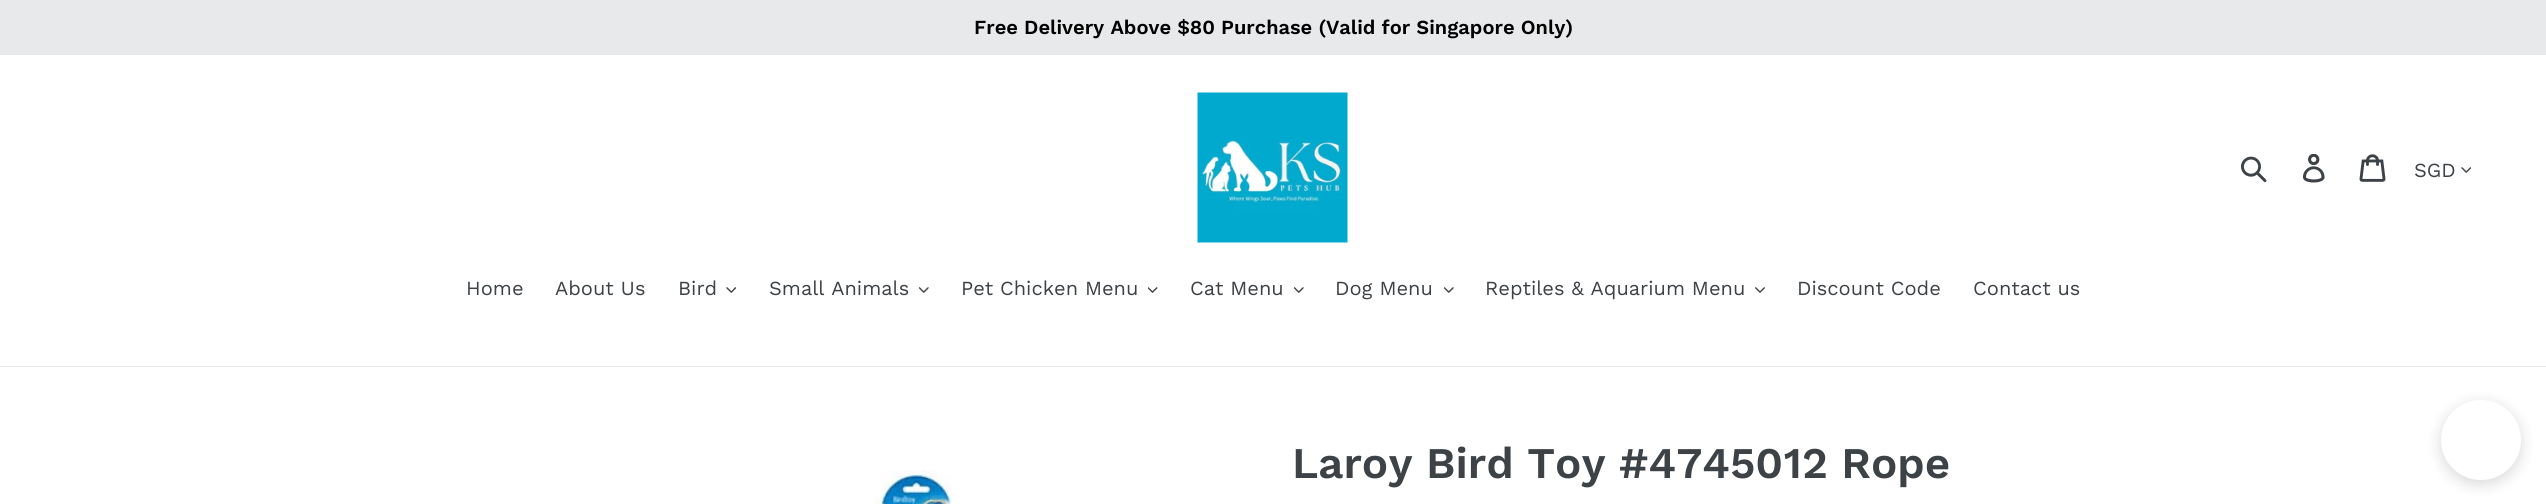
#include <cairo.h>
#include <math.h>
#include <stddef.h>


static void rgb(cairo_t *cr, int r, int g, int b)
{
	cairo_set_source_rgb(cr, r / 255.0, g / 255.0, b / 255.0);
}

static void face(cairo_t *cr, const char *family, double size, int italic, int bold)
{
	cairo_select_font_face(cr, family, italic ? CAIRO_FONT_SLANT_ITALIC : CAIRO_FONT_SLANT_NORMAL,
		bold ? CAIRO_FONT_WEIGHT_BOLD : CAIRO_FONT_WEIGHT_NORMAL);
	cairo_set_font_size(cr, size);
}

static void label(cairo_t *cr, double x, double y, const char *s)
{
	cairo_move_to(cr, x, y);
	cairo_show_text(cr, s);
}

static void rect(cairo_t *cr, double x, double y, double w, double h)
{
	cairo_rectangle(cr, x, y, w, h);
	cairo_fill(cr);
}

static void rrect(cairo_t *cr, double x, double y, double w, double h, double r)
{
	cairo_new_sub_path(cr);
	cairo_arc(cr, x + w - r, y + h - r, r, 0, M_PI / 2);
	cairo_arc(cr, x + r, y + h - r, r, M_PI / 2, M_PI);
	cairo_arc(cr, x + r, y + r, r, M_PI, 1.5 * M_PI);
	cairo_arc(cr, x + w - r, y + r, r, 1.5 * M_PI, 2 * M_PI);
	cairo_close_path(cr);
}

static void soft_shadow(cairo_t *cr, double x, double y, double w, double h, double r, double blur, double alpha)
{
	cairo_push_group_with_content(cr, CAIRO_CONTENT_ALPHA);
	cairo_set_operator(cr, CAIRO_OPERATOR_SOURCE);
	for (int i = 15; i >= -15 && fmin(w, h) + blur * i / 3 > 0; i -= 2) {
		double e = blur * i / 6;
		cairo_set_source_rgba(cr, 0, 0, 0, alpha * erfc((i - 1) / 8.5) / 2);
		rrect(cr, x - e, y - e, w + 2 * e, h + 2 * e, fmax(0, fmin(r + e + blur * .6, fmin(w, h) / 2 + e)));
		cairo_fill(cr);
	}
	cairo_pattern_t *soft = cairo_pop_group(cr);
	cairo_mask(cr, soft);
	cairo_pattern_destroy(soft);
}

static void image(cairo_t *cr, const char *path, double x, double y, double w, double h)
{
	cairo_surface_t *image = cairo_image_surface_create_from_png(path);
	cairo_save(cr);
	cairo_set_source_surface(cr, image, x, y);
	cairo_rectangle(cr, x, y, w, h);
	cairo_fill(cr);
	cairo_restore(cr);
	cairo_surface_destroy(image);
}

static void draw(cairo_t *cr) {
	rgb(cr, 255, 255, 255);
	cairo_paint(cr);
	rgb(cr, 232, 233, 235);
	rect(cr, 0, 0, 2546, 55);
	face(cr, "Work Sans SemiBold", 20, 0, 0);
	rgb(cr, 0, 0, 0);
	label(cr, 974, 34, "Free Delivery Above $80 Purchase (Valid for Singapore Only)");
	image(cr, "image0.png", 1197, 92, 151, 151);
	image(cr, "image1.png", 2241, 156, 26, 27);
	image(cr, "image2.png", 2303, 154, 22, 29);
	image(cr, "image3.png", 2359, 154, 27, 28);
	face(cr, "Work Sans", 20, 0, 0);
	rgb(cr, 61, 66, 70);
	label(cr, 2414, 177, "SGD");
	image(cr, "image4.png", 2461, 167, 10, 6);
	rgb(cr, 232, 233, 235);
	rect(cr, 0, 366, 2546, 1);
	rgb(cr, 61, 66, 70);
	label(cr, 466, 295, "Home");
	label(cr, 555, 295, "About Us");
	label(cr, 678, 295, "Bird");
	image(cr, "image4.png", 726, 287, 10, 6);
	label(cr, 769, 295, "Small Animals");
	image(cr, "image5.png", 919, 287, 10, 6);
	label(cr, 961, 295, "Pet Chicken Menu");
	image(cr, "image6.png", 1148, 287, 10, 6);
	label(cr, 1190, 295, "Cat Menu");
	image(cr, "image5.png", 1294, 287, 10, 6);
	label(cr, 1335, 295, "Dog Menu");
	image(cr, "image5.png", 1444, 287, 10, 6);
	label(cr, 1485, 295, "Reptiles & Aquarium Menu");
	image(cr, "image7.png", 1755, 287, 10, 6);
	label(cr, 1797, 295, "Discount Code");
	label(cr, 1973, 295, "Contact us");
	image(cr, "image8.png", 874, 470, 78, 34);
	face(cr, "Work Sans SemiBold", 43.75, 0, 0);
	label(cr, 1292, 478, "Laroy Bird Toy #4745012 Rope");
	rgb(cr, 0, 0, 0);
	soft_shadow(cr, 2441, 404, 80, 80, 40, 7.5, 0.15);
	rgb(cr, 255, 255, 255);
	cairo_arc(cr, 2481, 440, 40, 0, 2 * M_PI);
	cairo_fill(cr);
}

int main(void) {
	cairo_surface_t *surface = cairo_image_surface_create(CAIRO_FORMAT_RGB24, 2546, 504);
	cairo_t *cr = cairo_create(surface);
	cairo_font_options_t *options = cairo_font_options_create();
	cairo_font_options_set_hint_metrics(options, CAIRO_HINT_METRICS_OFF);
	cairo_font_options_set_hint_style(options, CAIRO_HINT_STYLE_NONE);
	cairo_set_font_options(cr, options);
	cairo_set_miter_limit(cr, 4);
	draw(cr);
	cairo_surface_write_to_png(surface, "render.png");
	cairo_font_options_destroy(options);
	cairo_destroy(cr);
	cairo_surface_destroy(surface);
	return 0;
}
